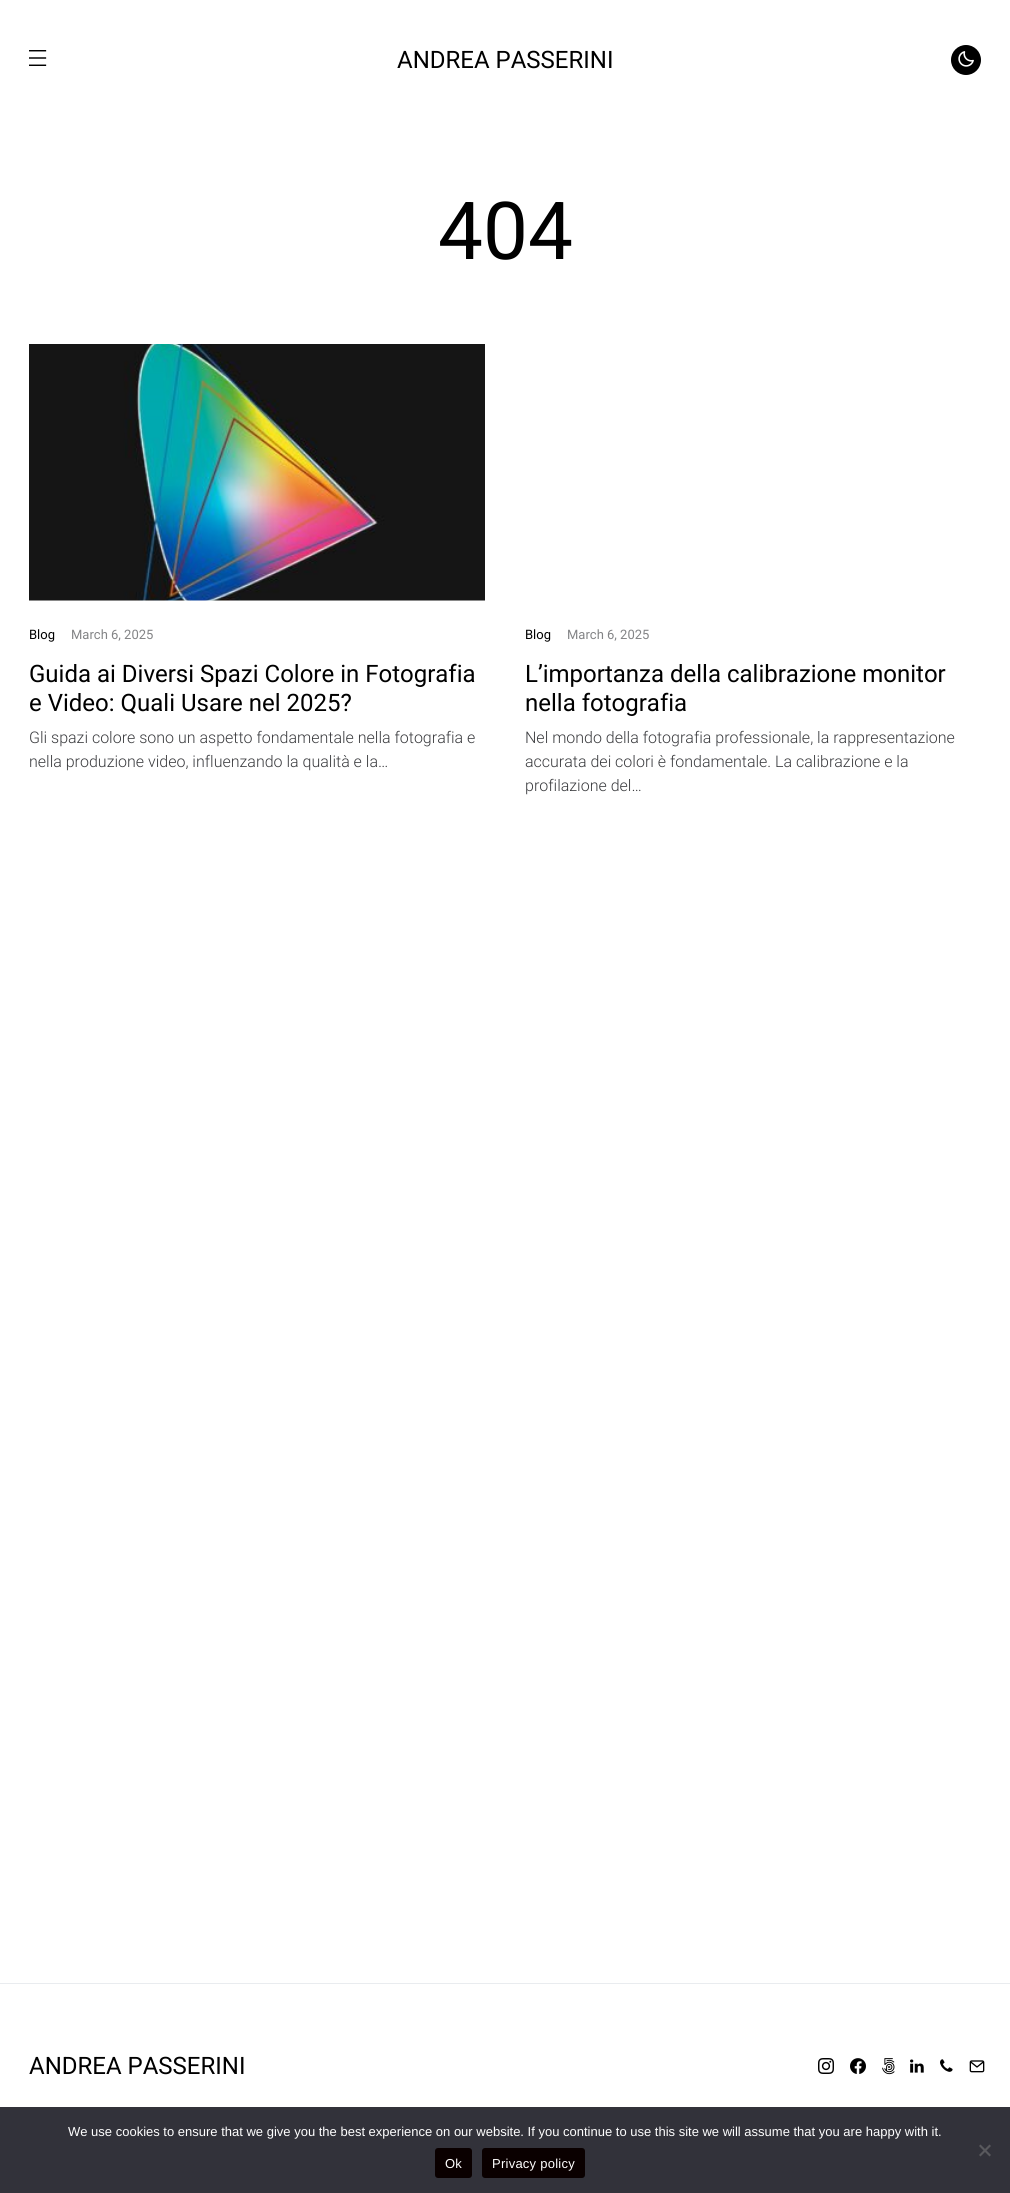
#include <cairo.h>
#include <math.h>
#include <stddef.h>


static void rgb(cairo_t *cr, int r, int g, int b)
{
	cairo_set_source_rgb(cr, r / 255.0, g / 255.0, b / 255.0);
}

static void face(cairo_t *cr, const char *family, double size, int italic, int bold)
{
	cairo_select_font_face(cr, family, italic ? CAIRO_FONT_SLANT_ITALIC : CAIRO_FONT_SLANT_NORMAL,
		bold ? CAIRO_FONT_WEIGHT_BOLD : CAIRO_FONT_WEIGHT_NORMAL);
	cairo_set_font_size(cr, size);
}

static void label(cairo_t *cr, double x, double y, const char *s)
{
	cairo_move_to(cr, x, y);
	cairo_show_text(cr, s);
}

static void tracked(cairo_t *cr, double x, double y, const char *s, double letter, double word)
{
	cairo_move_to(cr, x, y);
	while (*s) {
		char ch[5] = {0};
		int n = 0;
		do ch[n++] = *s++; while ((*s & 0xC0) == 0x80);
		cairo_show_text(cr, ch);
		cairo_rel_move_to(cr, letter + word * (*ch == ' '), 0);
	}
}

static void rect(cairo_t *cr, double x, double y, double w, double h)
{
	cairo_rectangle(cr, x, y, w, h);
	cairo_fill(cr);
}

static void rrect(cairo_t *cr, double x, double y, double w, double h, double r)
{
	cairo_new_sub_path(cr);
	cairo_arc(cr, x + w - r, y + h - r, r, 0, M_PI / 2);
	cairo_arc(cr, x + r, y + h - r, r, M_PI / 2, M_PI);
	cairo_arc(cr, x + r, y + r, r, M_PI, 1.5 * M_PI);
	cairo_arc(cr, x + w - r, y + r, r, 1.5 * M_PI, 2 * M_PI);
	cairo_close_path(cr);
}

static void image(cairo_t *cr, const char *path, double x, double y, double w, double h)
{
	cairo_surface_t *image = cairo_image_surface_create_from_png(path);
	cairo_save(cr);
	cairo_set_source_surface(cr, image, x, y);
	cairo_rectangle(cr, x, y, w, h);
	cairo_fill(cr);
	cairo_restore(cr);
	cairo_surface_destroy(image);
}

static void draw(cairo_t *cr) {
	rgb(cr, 255, 255, 255);
	cairo_paint(cr);
	image(cr, "image0.png", 29, 50, 18, 16);
	face(cr, "Roboto", 24, 0, 0);
	rgb(cr, 0, 0, 0);
	label(cr, 397, 68, "ANDREA PASSERINI");
	cairo_new_path(cr);
	cairo_arc(cr, 966, 60, 15, 0, 2 * M_PI);
	cairo_fill(cr);
	image(cr, "image1.png", 958, 51, 16, 16);
	face(cr, "Roboto", 80, 0, 0);
	label(cr, 438, 259, "404");
	image(cr, "image2.png", 29, 344, 456, 257);
	face(cr, "Roboto", 13, 0, 0);
	label(cr, 29, 639, "Blog");
	rgb(cr, 131, 132, 134);
	label(cr, 71, 639, "March 6, 2025");
	face(cr, "Roboto", 24, 0, 0);
	rgb(cr, 0, 0, 0);
	label(cr, 29, 682, "Guida ai Diversi Spazi Colore in Fotografia");
	label(cr, 29, 711, "e Video: Quali Usare nel 2025?");
	face(cr, "Roboto Light", 16, 0, 0);
	rgb(cr, 59, 60, 63);
	label(cr, 29, 743, "Gli spazi colore sono un aspetto fondamentale nella fotografia e");
	label(cr, 29, 767, "nella produzione video, influenzando la qualità e la…");
	face(cr, "Roboto", 13, 0, 0);
	rgb(cr, 0, 0, 0);
	label(cr, 525, 639, "Blog");
	rgb(cr, 131, 132, 134);
	label(cr, 567, 639, "March 6, 2025");
	face(cr, "Roboto", 24, 0, 0);
	rgb(cr, 0, 0, 0);
	label(cr, 525, 682, "L’importanza della calibrazione monitor");
	label(cr, 525, 711, "nella fotografia");
	face(cr, "Roboto Light", 16, 0, 0);
	rgb(cr, 59, 60, 63);
	label(cr, 525, 743, "Nel mondo della fotografia professionale, la rappresentazione");
	label(cr, 525, 767, "accurata dei colori è fondamentale. La calibrazione e la");
	label(cr, 525, 791, "profilazione del…");
	rgb(cr, 233, 236, 239);
	rect(cr, 0, 1983, 1010, 1);
	face(cr, "Roboto", 24, 0, 0);
	rgb(cr, 0, 0, 0);
	label(cr, 29, 2074, "ANDREA PASSERINI");
	image(cr, "image3.png", 818, 2058, 16, 16);
	image(cr, "image4.png", 850, 2058, 16, 16);
	image(cr, "image5.png", 882, 2058, 13, 17);
	image(cr, "image6.png", 910, 2059, 14, 14);
	image(cr, "image7.png", 940, 2059, 13, 13);
	image(cr, "image8.png", 969, 2060, 16, 13);
	rgb(cr, 50, 50, 58);
	rect(cr, 0, 2107, 1010, 86);
	face(cr, "Liberation Sans", 13, 0, 0);
	rgb(cr, 255, 255, 255);
	label(cr, 68, 2136, "We use cookies to ensure that we give you the best experience on our website. If you continue to use this site we will assume that you are happy with it.");
	rgb(cr, 89, 89, 93);
	cairo_new_path(cr);
	cairo_move_to(cr, 989.5, 2144.5);
	cairo_line_to(cr, 991, 2146);
	cairo_line_to(cr, 980.5, 2156.5);
	cairo_line_to(cr, 979, 2155);
	cairo_close_path(cr);
	cairo_fill(cr);
	cairo_new_path(cr);
	cairo_move_to(cr, 979, 2146);
	cairo_line_to(cr, 980.5, 2144.5);
	cairo_line_to(cr, 991, 2155);
	cairo_line_to(cr, 989.5, 2156.5);
	cairo_close_path(cr);
	cairo_fill(cr);
	rgb(cr, 10, 0, 0);
	rrect(cr, 435, 2148, 37, 30, 3);
	cairo_fill(cr);
	rgb(cr, 255, 255, 255);
	tracked(cr, 445, 2168, "Ok", 0.25, 0);
	rgb(cr, 10, 0, 0);
	rrect(cr, 482, 2148, 103, 30, 3);
	cairo_fill(cr);
	rgb(cr, 255, 255, 255);
	tracked(cr, 492, 2168, "Privacy policy", 0.25, 0);
}

int main(void) {
	cairo_surface_t *surface = cairo_image_surface_create(CAIRO_FORMAT_RGB24, 1010, 2193);
	cairo_t *cr = cairo_create(surface);
	cairo_font_options_t *options = cairo_font_options_create();
	cairo_font_options_set_hint_metrics(options, CAIRO_HINT_METRICS_OFF);
	cairo_font_options_set_hint_style(options, CAIRO_HINT_STYLE_NONE);
	cairo_set_font_options(cr, options);
	cairo_set_miter_limit(cr, 4);
	draw(cr);
	cairo_surface_write_to_png(surface, "render.png");
	cairo_font_options_destroy(options);
	cairo_destroy(cr);
	cairo_surface_destroy(surface);
	return 0;
}
